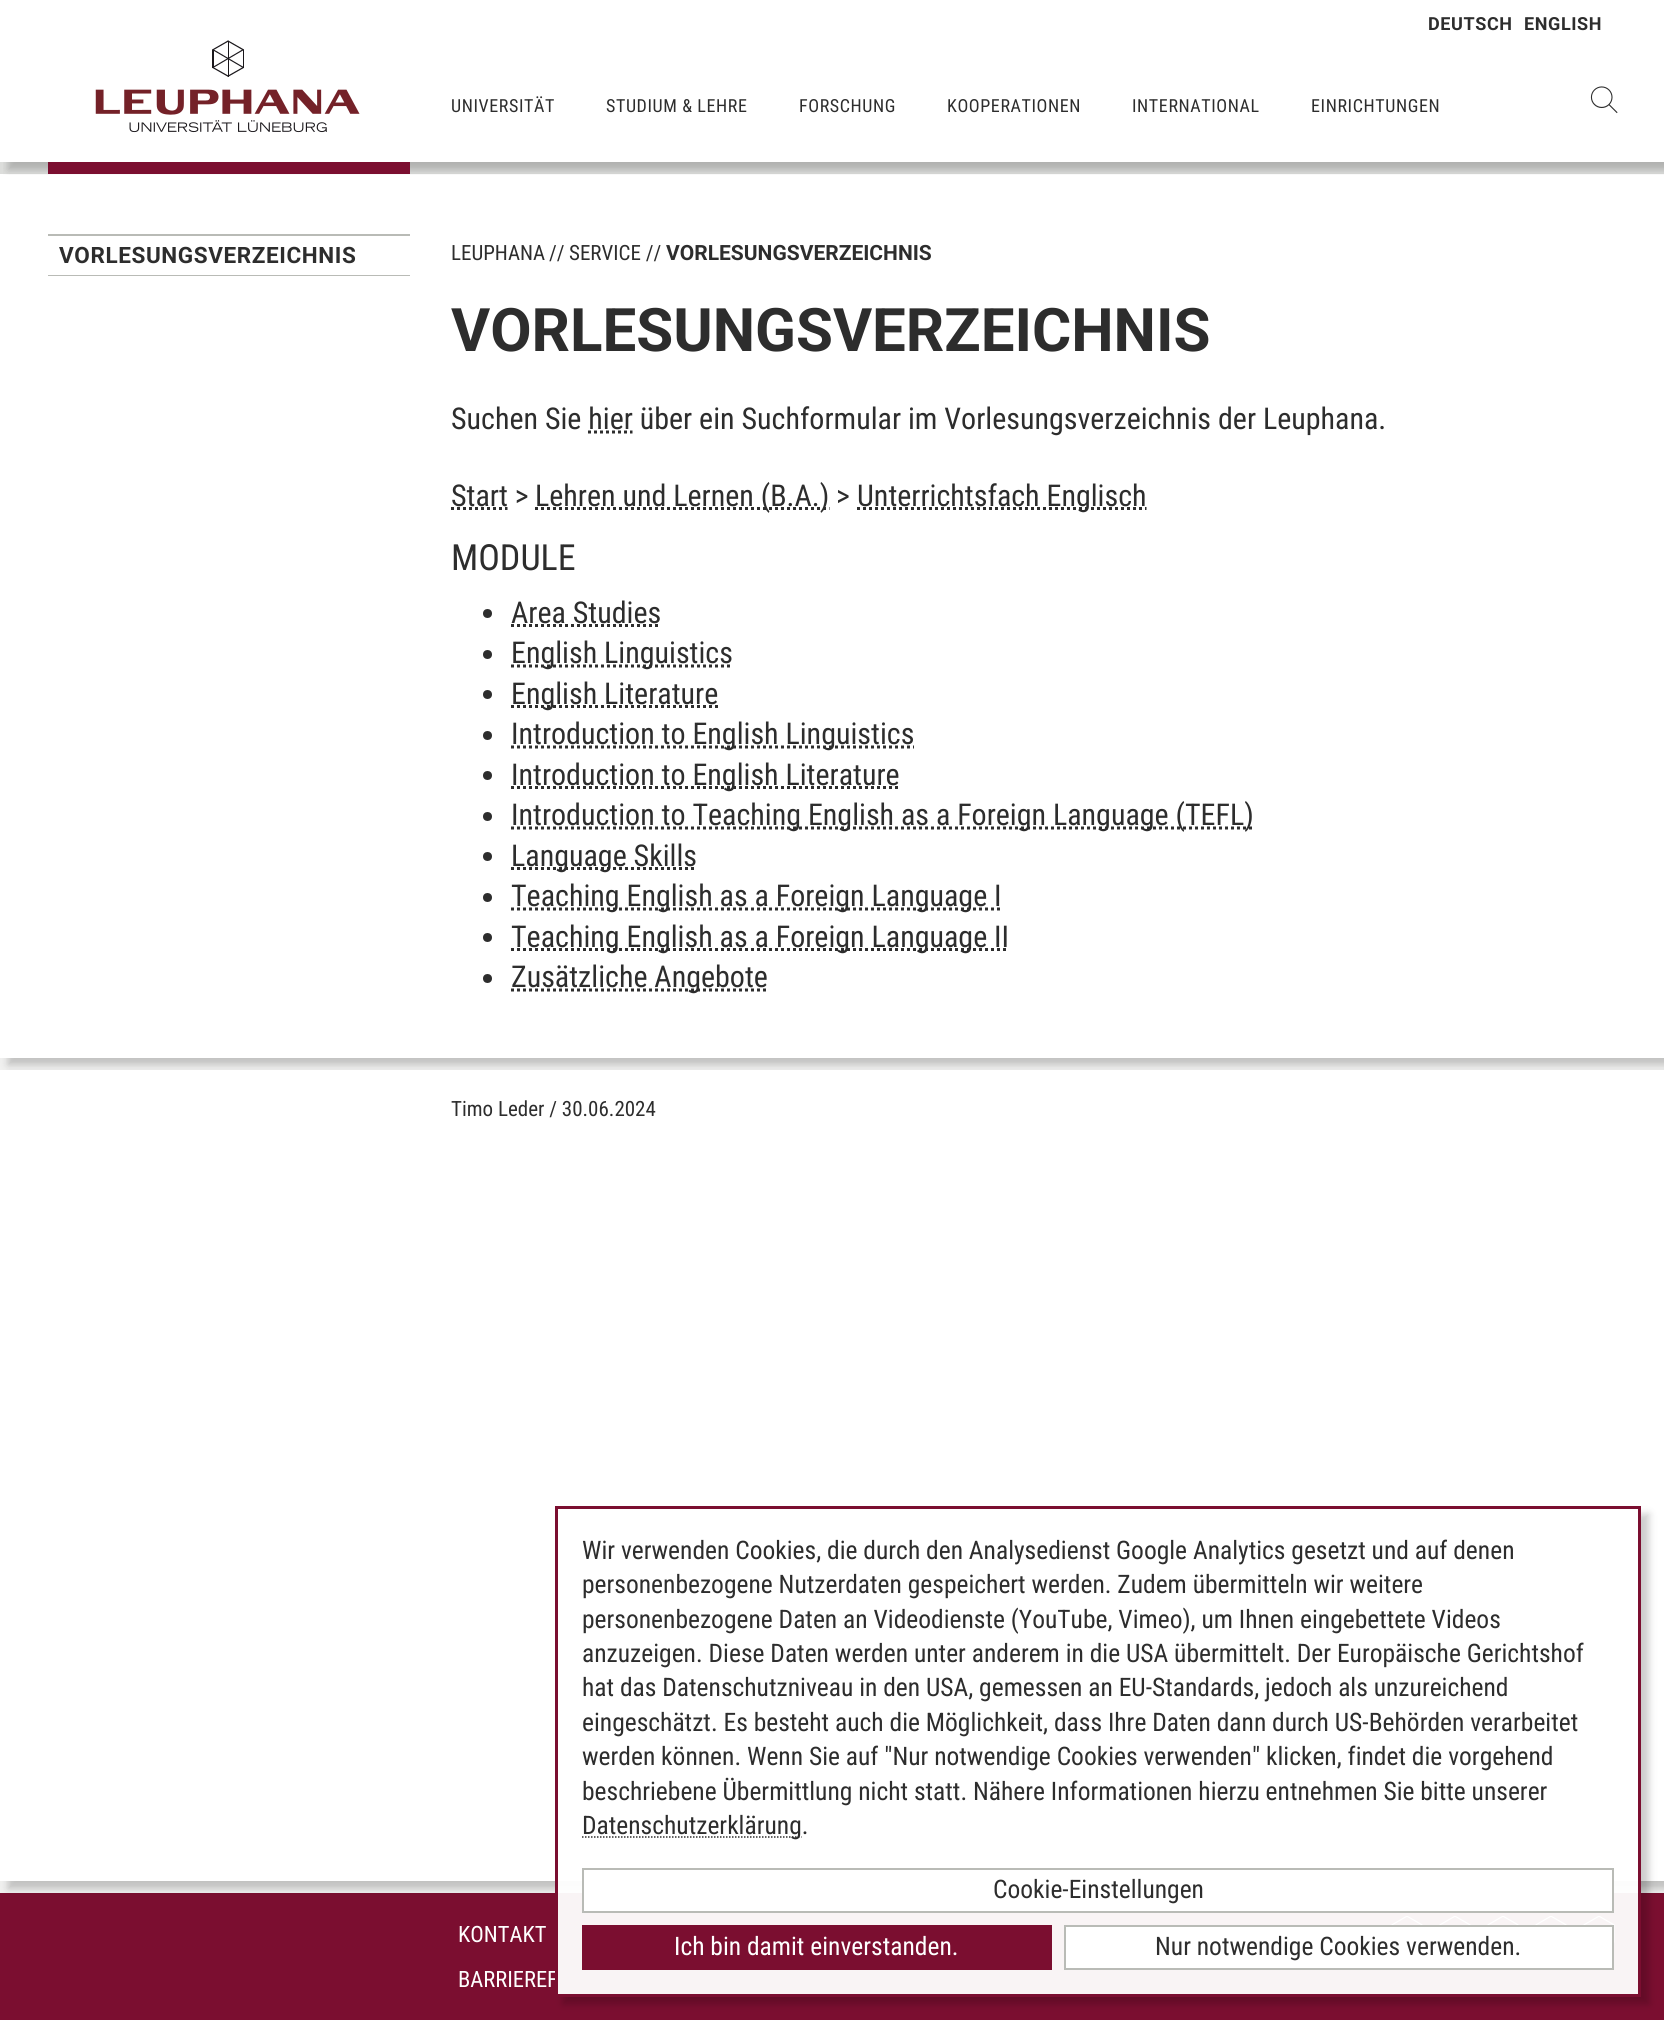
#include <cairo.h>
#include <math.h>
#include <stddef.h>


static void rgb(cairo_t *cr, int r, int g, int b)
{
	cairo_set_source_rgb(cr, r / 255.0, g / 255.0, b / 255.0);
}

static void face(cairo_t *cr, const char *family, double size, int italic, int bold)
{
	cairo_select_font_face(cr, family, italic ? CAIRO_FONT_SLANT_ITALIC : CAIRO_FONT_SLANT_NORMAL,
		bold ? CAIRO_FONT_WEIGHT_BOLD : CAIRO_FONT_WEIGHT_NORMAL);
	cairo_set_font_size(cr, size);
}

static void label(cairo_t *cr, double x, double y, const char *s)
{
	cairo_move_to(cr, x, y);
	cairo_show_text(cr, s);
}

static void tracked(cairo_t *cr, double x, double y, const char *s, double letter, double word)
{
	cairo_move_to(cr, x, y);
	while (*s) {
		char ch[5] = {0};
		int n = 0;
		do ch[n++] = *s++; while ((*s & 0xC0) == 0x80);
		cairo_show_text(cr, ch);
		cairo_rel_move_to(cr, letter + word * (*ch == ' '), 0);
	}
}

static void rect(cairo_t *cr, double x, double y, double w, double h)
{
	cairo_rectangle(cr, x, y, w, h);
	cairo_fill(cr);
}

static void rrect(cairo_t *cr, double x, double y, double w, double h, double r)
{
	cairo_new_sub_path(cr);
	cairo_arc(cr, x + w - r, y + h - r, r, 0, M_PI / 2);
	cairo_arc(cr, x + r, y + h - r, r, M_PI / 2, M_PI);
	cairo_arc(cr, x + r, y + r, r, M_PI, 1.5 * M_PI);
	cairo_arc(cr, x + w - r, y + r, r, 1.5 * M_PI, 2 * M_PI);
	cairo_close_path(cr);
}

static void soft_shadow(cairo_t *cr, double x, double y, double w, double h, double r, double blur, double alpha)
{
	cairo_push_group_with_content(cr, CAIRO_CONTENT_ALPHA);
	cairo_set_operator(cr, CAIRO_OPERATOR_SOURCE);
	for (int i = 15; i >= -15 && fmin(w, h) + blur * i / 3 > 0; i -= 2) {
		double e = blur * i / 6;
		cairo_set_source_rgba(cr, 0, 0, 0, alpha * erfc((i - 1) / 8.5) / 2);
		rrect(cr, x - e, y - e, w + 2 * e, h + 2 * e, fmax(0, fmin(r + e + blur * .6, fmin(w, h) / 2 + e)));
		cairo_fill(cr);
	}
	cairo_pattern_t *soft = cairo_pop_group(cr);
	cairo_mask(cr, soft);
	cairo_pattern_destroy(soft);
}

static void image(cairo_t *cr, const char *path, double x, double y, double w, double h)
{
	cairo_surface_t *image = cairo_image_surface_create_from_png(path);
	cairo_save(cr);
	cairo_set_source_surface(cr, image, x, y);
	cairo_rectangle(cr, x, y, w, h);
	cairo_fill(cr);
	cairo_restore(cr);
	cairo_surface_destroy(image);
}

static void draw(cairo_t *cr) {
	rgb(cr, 220, 221, 219);
	cairo_paint(cr);
	rgb(cr, 255, 255, 255);
	rect(cr, 0, 0, 1664, 162);
	rgb(cr, 241, 241, 240);
	rect(cr, 0, 1058, 1664, 12);
	rgb(cr, 0, 0, 0);
	soft_shadow(cr, 8, 182, 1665, 883, 0, 4, 0.2);
	rgb(cr, 255, 255, 255);
	rect(cr, 0, 174, 1664, 884);
	cairo_save(cr);
	cairo_rectangle(cr, 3, 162, 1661, 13);
	cairo_clip(cr);
	rgb(cr, 0, 0, 0);
	soft_shadow(cr, 8, 8, 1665, 162, 0, 4, 0.2);
	cairo_restore(cr);
	face(cr, "Roboto", 18, 0, 1);
	rgb(cr, 45, 45, 45);
	tracked(cr, 1428, 30, "DEUTSCH", 0.6, 0);
	tracked(cr, 1524, 30, "ENGLISH", 0.6, 0);
	image(cr, "image0.png", 95, 40, 265, 93);
	rgb(cr, 123, 14, 48);
	rect(cr, 48, 162, 362, 12);
	face(cr, "Roboto Condensed", 18, 0, 0);
	rgb(cr, 45, 45, 45);
	tracked(cr, 451, 112, "UNIVERSITÄT", 0.6, 0);
	tracked(cr, 606, 112, "STUDIUM & LEHRE", 0.6, 0);
	tracked(cr, 799, 112, "FORSCHUNG", 0.6, 0);
	tracked(cr, 947, 112, "KOOPERATIONEN", 0.6, 0);
	tracked(cr, 1132, 112, "INTERNATIONAL", 0.6, 0);
	tracked(cr, 1311, 112, "EINRICHTUNGEN", 0.6, 0);
	image(cr, "image1.png", 1590, 86, 28, 28);
	rgb(cr, 185, 187, 182);
	rect(cr, 48, 234, 362, 2);
	rect(cr, 48, 275, 362, 1);
	face(cr, "Roboto", 22.5, 0, 1);
	rgb(cr, 45, 45, 45);
	tracked(cr, 59, 263, "VORLESUNGSVERZEICHNIS", 0.6, 0);
	face(cr, "Roboto Condensed", 21, 0, 0);
	label(cr, 451, 260, "LEUPHANA");
	label(cr, 549, 260, "//");
	label(cr, 569, 260, "SERVICE //");
	face(cr, "Roboto", 21, 0, 1);
	label(cr, 666, 260, "VORLESUNGSVERZEICHNIS");
	face(cr, "Roboto", 60, 0, 1);
	label(cr, 451, 351, "VORLESUNGSVERZEICHNIS");
	face(cr, "Roboto Condensed", 30, 0, 0);
	label(cr, 451, 429, "Suchen Sie hier über ein Suchformular im Vorlesungsverzeichnis der Leuphana.");
	cairo_new_path(cr);
	cairo_move_to(cr, 588, 432);
	cairo_line_to(cr, 632.5, 432);
	cairo_set_line_width(cr, 3);
	cairo_set_dash(cr, (double[]){3, 3}, 2, 0);
	cairo_stroke(cr);
	label(cr, 451, 506, "Start >");
	cairo_new_path(cr);
	cairo_move_to(cr, 451, 508.5);
	cairo_line_to(cr, 507.5, 508.5);
	cairo_stroke(cr);
	cairo_new_path(cr);
	cairo_move_to(cr, 535, 508.5);
	cairo_line_to(cr, 829.5, 508.5);
	cairo_stroke(cr);
	label(cr, 535, 506, "Lehren und Lernen (B.A.) >");
	cairo_new_path(cr);
	cairo_move_to(cr, 857, 508.5);
	cairo_line_to(cr, 1146.5, 508.5);
	cairo_stroke(cr);
	label(cr, 857, 506, "Unterrichtsfach Englisch");
	face(cr, "Roboto Condensed", 36, 0, 0);
	label(cr, 451, 570, "MODULE");
	cairo_new_path(cr);
	cairo_arc(cr, 487.5, 613.5, 4.5, 0, 2 * M_PI);
	cairo_fill(cr);
	face(cr, "Roboto Condensed", 30, 0, 0);
	label(cr, 511, 623, "Area Studies");
	cairo_new_path(cr);
	cairo_move_to(cr, 511, 625.5);
	cairo_line_to(cr, 661, 625.5);
	cairo_stroke(cr);
	cairo_arc(cr, 487.5, 654.5, 4.5, 0, 2 * M_PI);
	cairo_fill(cr);
	cairo_new_path(cr);
	cairo_move_to(cr, 511, 666);
	cairo_line_to(cr, 732.5, 666);
	cairo_stroke(cr);
	label(cr, 511, 663, "English Linguistics");
	cairo_new_path(cr);
	cairo_arc(cr, 487.5, 694.5, 4.5, 0, 2 * M_PI);
	cairo_fill(cr);
	cairo_new_path(cr);
	cairo_move_to(cr, 511, 706.5);
	cairo_line_to(cr, 718, 706.5);
	cairo_stroke(cr);
	label(cr, 511, 704, "English Literature");
	cairo_new_path(cr);
	cairo_arc(cr, 487.5, 735.5, 4.5, 0, 2 * M_PI);
	cairo_fill(cr);
	cairo_new_path(cr);
	cairo_move_to(cr, 511, 747);
	cairo_line_to(cr, 914, 747);
	cairo_stroke(cr);
	label(cr, 511, 744, "Introduction to English Linguistics");
	cairo_new_path(cr);
	cairo_arc(cr, 487.5, 775.5, 4.5, 0, 2 * M_PI);
	cairo_fill(cr);
	cairo_new_path(cr);
	cairo_move_to(cr, 511, 787.5);
	cairo_line_to(cr, 899.5, 787.5);
	cairo_stroke(cr);
	label(cr, 511, 785, "Introduction to English Literature");
	cairo_new_path(cr);
	cairo_arc(cr, 487.5, 816.5, 4.5, 0, 2 * M_PI);
	cairo_fill(cr);
	cairo_new_path(cr);
	cairo_move_to(cr, 511, 828);
	cairo_line_to(cr, 1253.5, 828);
	cairo_stroke(cr);
	label(cr, 511, 825, "Introduction to Teaching English as a Foreign Language (TEFL)");
	cairo_new_path(cr);
	cairo_arc(cr, 487.5, 856.5, 4.5, 0, 2 * M_PI);
	cairo_fill(cr);
	cairo_new_path(cr);
	cairo_move_to(cr, 511, 868.5);
	cairo_line_to(cr, 697, 868.5);
	cairo_stroke(cr);
	label(cr, 511, 866, "Language Skills");
	cairo_new_path(cr);
	cairo_arc(cr, 487.5, 897.5, 4.5, 0, 2 * M_PI);
	cairo_fill(cr);
	cairo_new_path(cr);
	cairo_move_to(cr, 511, 909);
	cairo_line_to(cr, 1001.5, 909);
	cairo_stroke(cr);
	label(cr, 511, 906, "Teaching English as a Foreign Language I");
	cairo_new_path(cr);
	cairo_arc(cr, 487.5, 937.5, 4.5, 0, 2 * M_PI);
	cairo_fill(cr);
	cairo_new_path(cr);
	cairo_move_to(cr, 511, 949.5);
	cairo_line_to(cr, 1009, 949.5);
	cairo_stroke(cr);
	label(cr, 511, 947, "Teaching English as a Foreign Language II");
	cairo_new_path(cr);
	cairo_arc(cr, 487.5, 978.5, 4.5, 0, 2 * M_PI);
	cairo_fill(cr);
	cairo_new_path(cr);
	cairo_move_to(cr, 511, 990);
	cairo_line_to(cr, 767.5, 990);
	cairo_stroke(cr);
	label(cr, 511, 987, "Zusätzliche Angebote");
	rgb(cr, 241, 241, 240);
	rect(cr, 0, 1881, 1664, 12);
	rgb(cr, 123, 14, 48);
	rect(cr, 0, 1893, 1664, 127);
	rgb(cr, 0, 0, 0);
	soft_shadow(cr, 8, 1077, 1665, 812, 0, 4, 0.2);
	rgb(cr, 255, 255, 255);
	rect(cr, 0, 1070, 1664, 811);
	face(cr, "Roboto Condensed", 21, 0, 0);
	rgb(cr, 45, 45, 45);
	label(cr, 451, 1116, "Timo Leder / 30.06.2024");
	face(cr, "Roboto Condensed", 22.5, 0, 0);
	rgb(cr, 255, 255, 255);
	label(cr, 458, 1942, "KONTAKT");
	label(cr, 458, 1987, "BARRIEREF");
	image(cr, "image2.png", 1391, 1916, 32, 9);
	image(cr, "image2.png", 1439, 1916, 32, 9);
	image(cr, "image2.png", 1487, 1916, 32, 9);
	image(cr, "image2.png", 1535, 1916, 32, 9);
	image(cr, "image3.png", 1583, 1916, 32, 27);
	cairo_save(cr);
	cairo_set_fill_rule(cr, CAIRO_FILL_RULE_EVEN_ODD);
	cairo_new_path(cr);
	cairo_move_to(cr, 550, 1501);
	cairo_line_to(cr, 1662, 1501);
	cairo_line_to(cr, 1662, 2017);
	cairo_line_to(cr, 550, 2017);
	cairo_close_path(cr);
	cairo_move_to(cr, 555, 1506);
	cairo_line_to(cr, 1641, 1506);
	cairo_line_to(cr, 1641, 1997);
	cairo_line_to(cr, 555, 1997);
	cairo_close_path(cr);
	cairo_clip(cr);
	rgb(cr, 0, 0, 0);
	soft_shadow(cr, 563, 1514, 1086, 490, 0, 4, 0.2);
	cairo_restore(cr);
	cairo_set_source_rgba(cr, 1, 1, 1, 0.95);
	rect(cr, 558, 1881, 1080, 113);
	cairo_rectangle(cr, 556.5, 1507.5, 1083, 488);
	rgb(cr, 123, 14, 48);
	cairo_set_dash(cr, NULL, 0, 0);
	cairo_stroke(cr);
	face(cr, "Roboto Condensed", 25.5, 0, 0);
	rgb(cr, 45, 45, 45);
	label(cr, 582, 1559, "Wir verwenden Cookies, die durch den Analysedienst Google Analytics gesetzt und auf denen");
	label(cr, 582, 1593, "personenbezogene Nutzerdaten gespeichert werden. Zudem übermitteln wir weitere");
	label(cr, 582, 1628, "personenbezogene Daten an Videodienste (YouTube, Vimeo), um Ihnen eingebettete Videos");
	label(cr, 582, 1662, "anzuzeigen. Diese Daten werden unter anderem in die USA übermittelt. Der Europäische Gerichtshof");
	label(cr, 582, 1696, "hat das Datenschutzniveau in den USA, gemessen an EU-Standards, jedoch als unzureichend");
	label(cr, 582, 1731, "eingeschätzt. Es besteht auch die Möglichkeit, dass Ihre Daten dann durch US-Behörden verarbeitet");
	label(cr, 582, 1765, "werden können. Wenn Sie auf \"Nur notwendige Cookies verwenden\" klicken, findet die vorgehend");
	label(cr, 582, 1800, "beschriebene Übermittlung nicht statt. Nähere Informationen hierzu entnehmen Sie bitte unserer");
	cairo_new_path(cr);
	cairo_move_to(cr, 582, 1837);
	cairo_line_to(cr, 801.5, 1837);
	cairo_set_line_width(cr, 1.5);
	cairo_set_dash(cr, (double[]){1.5, 1.5}, 2, 0);
	cairo_stroke(cr);
	label(cr, 582, 1834, "Datenschutzerklärung.");
	rgb(cr, 255, 255, 255);
	rect(cr, 584, 1881, 1028, 30);
	cairo_rectangle(cr, 583, 1869, 1030, 43);
	rgb(cr, 185, 187, 182);
	cairo_set_line_width(cr, 2);
	cairo_set_dash(cr, NULL, 0, 0);
	cairo_stroke(cr);
	rgb(cr, 45, 45, 45);
	label(cr, 993, 1898, "Cookie-Einstellungen");
	rgb(cr, 123, 14, 48);
	rect(cr, 582, 1925, 470, 45);
	rgb(cr, 255, 255, 255);
	label(cr, 674, 1955, "Ich bin damit einverstanden.");
	cairo_rectangle(cr, 1065, 1926, 548, 43);
	cairo_fill_preserve(cr);
	rgb(cr, 185, 187, 182);
	cairo_stroke(cr);
	rgb(cr, 45, 45, 45);
	label(cr, 1155, 1955, "Nur notwendige Cookies verwenden.");
}

int main(void) {
	cairo_surface_t *surface = cairo_image_surface_create(CAIRO_FORMAT_RGB24, 1664, 2020);
	cairo_t *cr = cairo_create(surface);
	cairo_font_options_t *options = cairo_font_options_create();
	cairo_font_options_set_hint_metrics(options, CAIRO_HINT_METRICS_OFF);
	cairo_font_options_set_hint_style(options, CAIRO_HINT_STYLE_NONE);
	cairo_set_font_options(cr, options);
	cairo_set_miter_limit(cr, 4);
	draw(cr);
	cairo_surface_write_to_png(surface, "render.png");
	cairo_font_options_destroy(options);
	cairo_destroy(cr);
	cairo_surface_destroy(surface);
	return 0;
}
